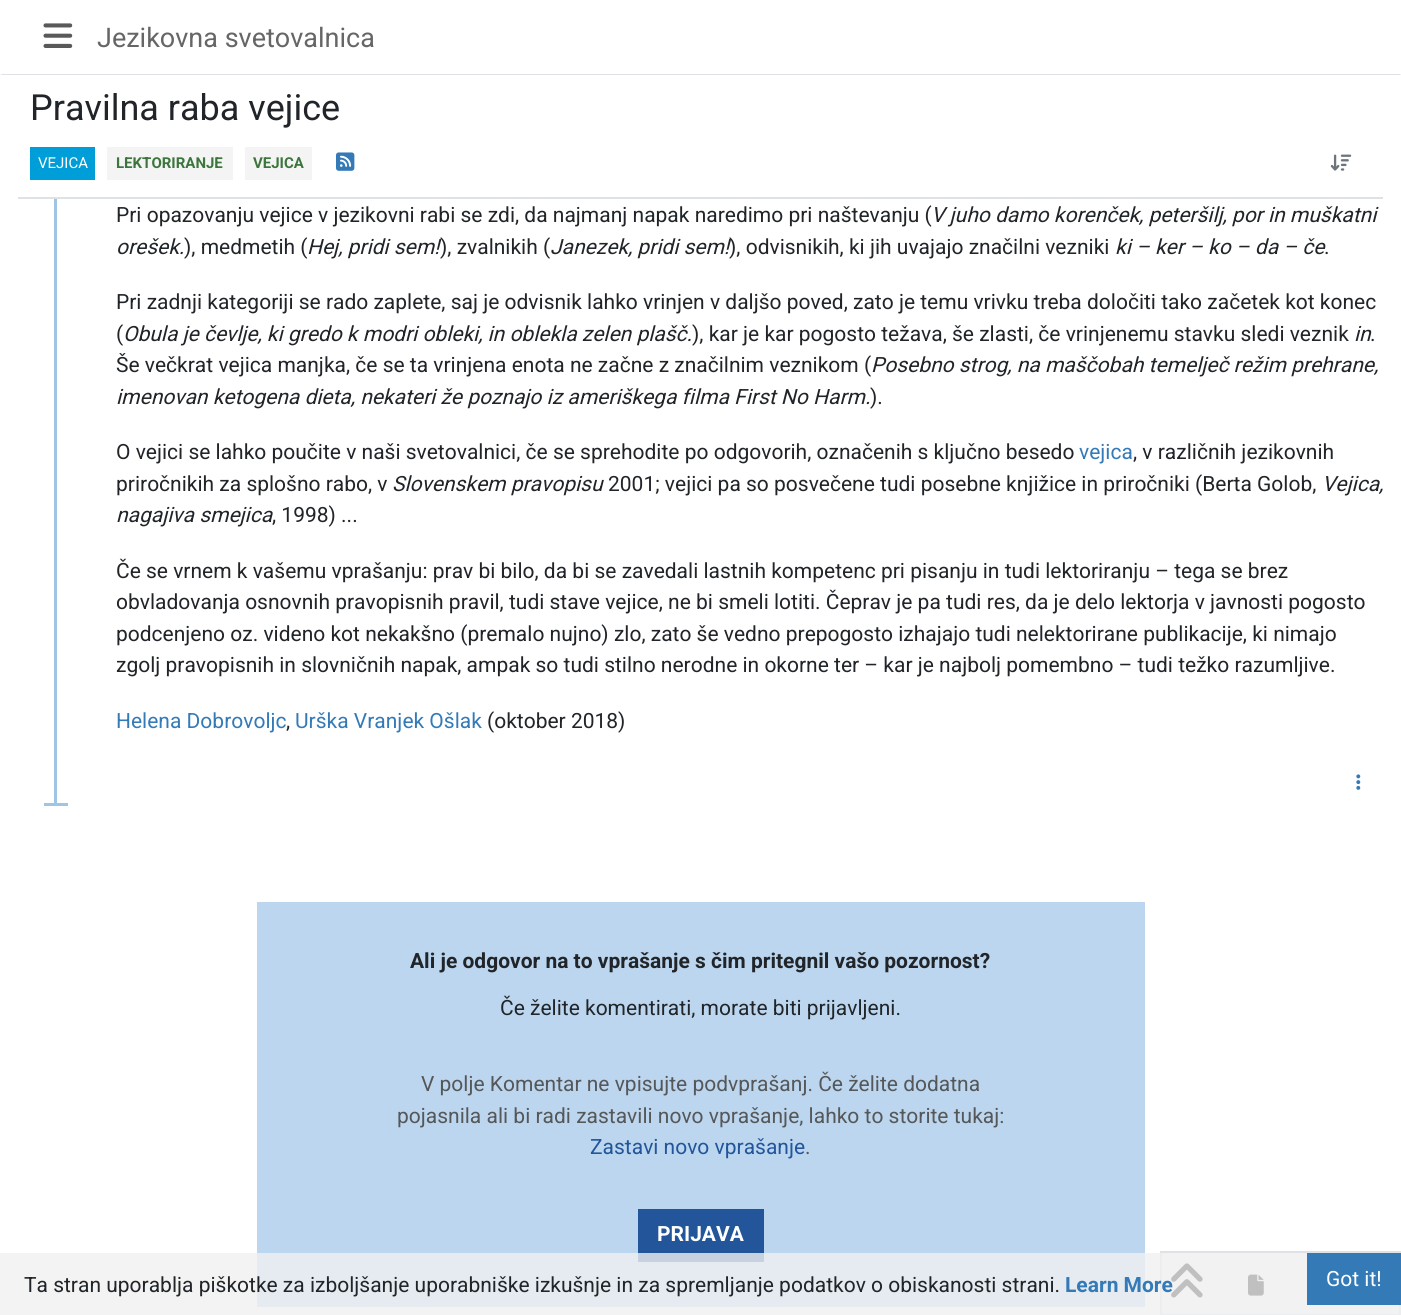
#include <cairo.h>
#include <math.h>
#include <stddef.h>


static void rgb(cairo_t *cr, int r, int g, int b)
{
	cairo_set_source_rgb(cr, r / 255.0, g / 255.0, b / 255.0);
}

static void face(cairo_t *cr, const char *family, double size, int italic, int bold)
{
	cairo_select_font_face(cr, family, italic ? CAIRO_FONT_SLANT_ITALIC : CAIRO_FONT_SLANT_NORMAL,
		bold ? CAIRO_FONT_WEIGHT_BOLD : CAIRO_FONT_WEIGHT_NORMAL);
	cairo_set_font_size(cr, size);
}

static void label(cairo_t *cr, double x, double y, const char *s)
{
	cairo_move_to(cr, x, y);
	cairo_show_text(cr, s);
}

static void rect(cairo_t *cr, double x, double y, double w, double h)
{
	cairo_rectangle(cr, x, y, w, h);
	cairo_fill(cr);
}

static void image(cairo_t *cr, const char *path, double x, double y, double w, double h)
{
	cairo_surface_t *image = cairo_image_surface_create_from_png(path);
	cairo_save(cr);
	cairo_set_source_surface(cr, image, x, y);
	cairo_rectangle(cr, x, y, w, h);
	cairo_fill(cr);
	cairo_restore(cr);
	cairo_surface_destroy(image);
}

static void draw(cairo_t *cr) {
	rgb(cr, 255, 255, 255);
	cairo_paint(cr);
	rgb(cr, 222, 226, 230);
	cairo_new_path(cr);
	cairo_move_to(cr, 1401, 75);
	cairo_line_to(cr, 0, 75);
	cairo_line_to(cr, 2, 74);
	cairo_line_to(cr, 1400, 74);
	cairo_close_path(cr);
	cairo_fill(cr);
	image(cr, "image0.png", 43, 23, 30, 25);
	face(cr, "Roboto", 27, 0, 0);
	rgb(cr, 102, 102, 102);
	label(cr, 97, 47, "Jezikovna svetovalnica");
	rgb(cr, 222, 226, 230);
	rect(cr, 18, 197, 1365, 2);
	face(cr, "Roboto", 36, 0, 0);
	rgb(cr, 33, 37, 41);
	label(cr, 30, 120, "Pravilna raba vejice");
	rgb(cr, 0, 158, 216);
	rect(cr, 30, 147, 65, 33);
	face(cr, "Roboto", 15, 0, 0);
	rgb(cr, 255, 255, 255);
	label(cr, 38, 168, "VEJICA");
	rgb(cr, 244, 244, 244);
	rect(cr, 107, 147, 126, 33);
	face(cr, "Roboto", 15, 0, 1);
	rgb(cr, 60, 118, 61);
	label(cr, 116, 168, "LEKTORIRANJE");
	rgb(cr, 244, 244, 244);
	rect(cr, 245, 147, 67, 33);
	rgb(cr, 60, 118, 61);
	label(cr, 253, 168, "VEJICA");
	image(cr, "image1.png", 336, 152, 19, 19);
	image(cr, "image2.png", 1330, 154, 22, 17);
	rgb(cr, 160, 196, 228);
	rect(cr, 54, 199, 3, 607);
	face(cr, "Roboto", 21, 0, 0);
	rgb(cr, 33, 37, 41);
	label(cr, 116, 222, "Pri opazovanju vejice v jezikovni rabi se zdi, da najmanj napak naredimo pri naštevanju (");
	face(cr, "Roboto", 21, 1, 0);
	label(cr, 931, 222, "V juho damo korenček, peteršilj, por in muškatni");
	label(cr, 116, 254, "orešek.");
	face(cr, "Roboto", 21, 0, 0);
	label(cr, 184, 254, "), medmetih (");
	face(cr, "Roboto", 21, 1, 0);
	label(cr, 307, 254, "Hej, pridi sem!");
	face(cr, "Roboto", 21, 0, 0);
	label(cr, 440, 254, "), zvalnikih (");
	face(cr, "Roboto", 21, 1, 0);
	label(cr, 550, 254, "Janezek, pridi sem!");
	face(cr, "Roboto", 21, 0, 0);
	label(cr, 729, 254, "), odvisnikih, ki jih uvajajo značilni vezniki");
	face(cr, "Roboto", 21, 1, 0);
	label(cr, 1115, 254, "ki – ker – ko – da – če");
	face(cr, "Roboto", 21, 0, 0);
	label(cr, 1324, 254, ".");
	label(cr, 116, 309, "Pri zadnji kategoriji se rado zaplete, saj je odvisnik lahko vrinjen v daljšo poved, zato je temu vrivku treba določiti tako začetek kot konec");
	label(cr, 116, 341, "(");
	face(cr, "Roboto", 21, 1, 0);
	label(cr, 123, 341, "Obula je čevlje, ki gredo k modri obleki, in oblekla zelen plašč.");
	face(cr, "Roboto", 21, 0, 0);
	label(cr, 692, 341, "), kar je kar pogosto težava, še zlasti, če vrinjenemu stavku sledi veznik");
	face(cr, "Roboto", 21, 1, 0);
	label(cr, 1354, 341, "in");
	face(cr, "Roboto", 21, 0, 0);
	label(cr, 1370, 341, ".");
	label(cr, 116, 372, "Še večkrat vejica manjka, če se ta vrinjena enota ne začne z značilnim veznikom (");
	face(cr, "Roboto", 21, 1, 0);
	label(cr, 871, 372, "Posebno strog, na maščobah temelječ režim prehrane,");
	label(cr, 116, 404, "imenovan ketogena dieta, nekateri že poznajo iz ameriškega filma First No Harm.");
	face(cr, "Roboto", 21, 0, 0);
	label(cr, 870, 404, ").");
	label(cr, 116, 459, "O vejici se lahko poučite v naši svetovalnici, če se sprehodite po odgovorih, označenih s ključno besedo");
	rgb(cr, 51, 122, 183);
	label(cr, 1079, 459, "vejica");
	rgb(cr, 33, 37, 41);
	label(cr, 1133, 459, ", v različnih jezikovnih");
	label(cr, 116, 491, "priročnikih za splošno rabo, v");
	face(cr, "Roboto", 21, 1, 0);
	label(cr, 392, 491, "Slovenskem pravopisu");
	face(cr, "Roboto", 21, 0, 0);
	label(cr, 608, 491, "2001; vejici pa so posvečene tudi posebne knjižice in priročniki (Berta Golob,");
	face(cr, "Roboto", 21, 1, 0);
	label(cr, 1322, 491, "Vejica,");
	label(cr, 116, 522, "nagajiva smejica");
	face(cr, "Roboto", 21, 0, 0);
	label(cr, 272, 522, ", 1998) ...");
	label(cr, 116, 578, "Če se vrnem k vašemu vprašanju: prav bi bilo, da bi se zavedali lastnih kompetenc pri pisanju in tudi lektoriranju – tega se brez");
	label(cr, 116, 609, "obvladovanja osnovnih pravopisnih pravil, tudi stave vejice, ne bi smeli lotiti. Čeprav je pa tudi res, da je delo lektorja v javnosti pogosto");
	label(cr, 116, 641, "podcenjeno oz. videno kot nekakšno (premalo nujno) zlo, zato še vedno prepogosto izhajajo tudi nelektorirane publikacije, ki nimajo");
	label(cr, 116, 672, "zgolj pravopisnih in slovničnih napak, ampak so tudi stilno nerodne in okorne ter – kar je najbolj pomembno – tudi težko razumljive.");
	rgb(cr, 51, 122, 183);
	label(cr, 116, 728, "Helena Dobrovoljc");
	rgb(cr, 33, 37, 41);
	label(cr, 286, 728, ",");
	rgb(cr, 51, 122, 183);
	label(cr, 295, 728, "Urška Vranjek Ošlak");
	rgb(cr, 33, 37, 41);
	label(cr, 487, 728, "(oktober 2018)");
	image(cr, "image3.png", 1356, 774, 5, 16);
	rgb(cr, 160, 196, 228);
	rect(cr, 44, 803, 24, 3);
	rgb(cr, 248, 249, 250);
	cairo_rectangle(cr, 1161, 1252, 239, 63);
	cairo_fill_preserve(cr);
	rgb(cr, 222, 226, 230);
	cairo_stroke(cr);
	image(cr, "image4.png", 1171, 1263, 32, 35);
	image(cr, "image5.png", 1248, 1274, 16, 22);
	rgb(cr, 187, 214, 238);
	rect(cr, 257, 902, 888, 405);
	face(cr, "Roboto", 21, 0, 1);
	rgb(cr, 33, 37, 41);
	label(cr, 410, 968, "Ali je odgovor na to vprašanje s čim pritegnil vašo pozornost?");
	face(cr, "Roboto", 21, 0, 0);
	label(cr, 500, 1015, "Če želite komentirati, morate biti prijavljeni.");
	rgb(cr, 86, 87, 89);
	label(cr, 421, 1091, "V polje Komentar ne vpisujte podvprašanj. Če želite dodatna");
	label(cr, 397, 1123, "pojasnila ali bi radi zastavili novo vprašanje, lahko to storite tukaj:");
	rgb(cr, 34, 85, 153);
	label(cr, 590, 1154, "Zastavi novo vprašanje");
	rgb(cr, 86, 87, 89);
	label(cr, 805, 1154, ".");
	rgb(cr, 34, 85, 153);
	rect(cr, 638, 1209, 126, 53);
	face(cr, "Roboto", 21, 0, 1);
	rgb(cr, 255, 255, 255);
	label(cr, 657, 1241, "PRIJAVA");
	cairo_set_source_rgba(cr, 0.941, 0.941, 0.941, 0.8);
	rect(cr, 0, 1253, 1401, 62);
	face(cr, "Roboto", 21, 0, 0);
	rgb(cr, 33, 37, 41);
	label(cr, 24, 1292, "Ta stran uporablja piškotke za izboljšanje uporabniške izkušnje in za spremljanje podatkov o obiskanosti strani.");
	face(cr, "Roboto", 21, 0, 1);
	rgb(cr, 51, 122, 183);
	label(cr, 1065, 1292, "Learn More");
	rect(cr, 1307, 1253, 94, 52);
	face(cr, "Roboto", 21, 0, 0);
	rgb(cr, 255, 255, 255);
	label(cr, 1326, 1286, "Got it!");
}

int main(void) {
	cairo_surface_t *surface = cairo_image_surface_create(CAIRO_FORMAT_RGB24, 1401, 1315);
	cairo_t *cr = cairo_create(surface);
	cairo_font_options_t *options = cairo_font_options_create();
	cairo_font_options_set_hint_metrics(options, CAIRO_HINT_METRICS_OFF);
	cairo_font_options_set_hint_style(options, CAIRO_HINT_STYLE_NONE);
	cairo_set_font_options(cr, options);
	cairo_set_miter_limit(cr, 4);
	draw(cr);
	cairo_surface_write_to_png(surface, "render.png");
	cairo_font_options_destroy(options);
	cairo_destroy(cr);
	cairo_surface_destroy(surface);
	return 0;
}
